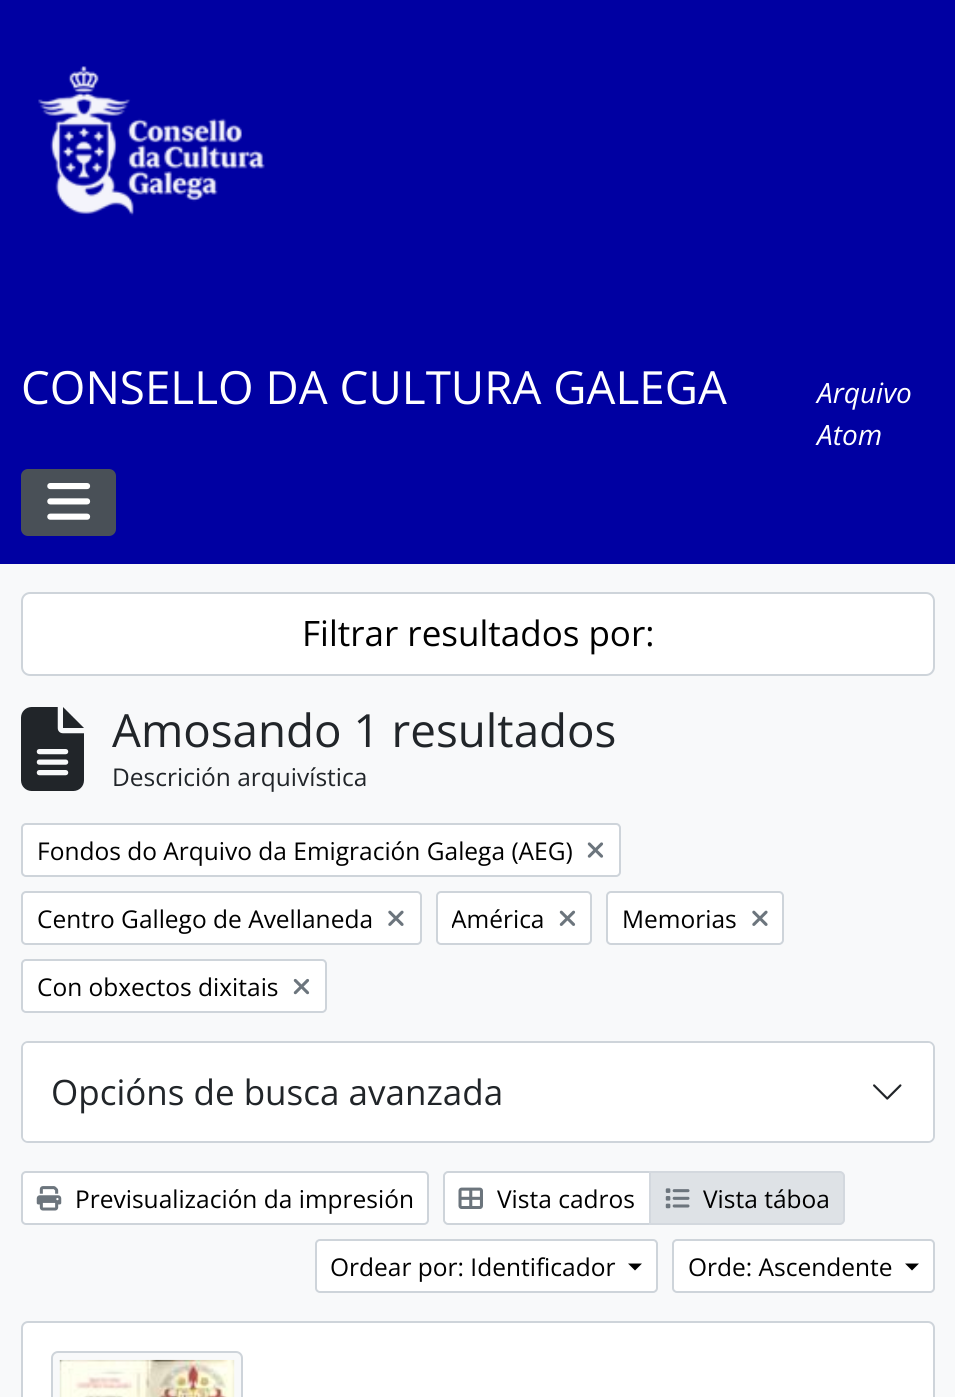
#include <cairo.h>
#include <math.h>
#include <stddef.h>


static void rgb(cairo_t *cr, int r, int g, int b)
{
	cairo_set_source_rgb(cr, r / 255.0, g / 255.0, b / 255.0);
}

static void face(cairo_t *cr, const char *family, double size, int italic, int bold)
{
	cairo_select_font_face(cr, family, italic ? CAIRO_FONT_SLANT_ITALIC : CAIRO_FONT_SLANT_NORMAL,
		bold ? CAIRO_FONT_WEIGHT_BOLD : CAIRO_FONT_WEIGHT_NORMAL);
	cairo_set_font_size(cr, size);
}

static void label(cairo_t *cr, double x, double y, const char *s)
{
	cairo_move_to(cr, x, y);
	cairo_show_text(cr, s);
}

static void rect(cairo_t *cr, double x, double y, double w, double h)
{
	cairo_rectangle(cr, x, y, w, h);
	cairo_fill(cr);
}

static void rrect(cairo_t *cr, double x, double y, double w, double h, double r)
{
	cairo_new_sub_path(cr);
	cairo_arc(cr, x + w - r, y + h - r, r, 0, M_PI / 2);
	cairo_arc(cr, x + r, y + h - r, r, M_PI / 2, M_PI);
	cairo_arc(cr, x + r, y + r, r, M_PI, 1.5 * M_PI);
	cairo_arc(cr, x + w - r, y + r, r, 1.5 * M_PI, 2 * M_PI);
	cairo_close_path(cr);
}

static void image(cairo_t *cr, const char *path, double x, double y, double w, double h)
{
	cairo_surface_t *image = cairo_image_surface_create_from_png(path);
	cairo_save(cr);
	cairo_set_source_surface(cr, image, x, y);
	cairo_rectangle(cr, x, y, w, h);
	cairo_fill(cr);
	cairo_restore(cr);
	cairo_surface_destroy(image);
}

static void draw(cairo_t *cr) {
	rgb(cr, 248, 249, 250);
	cairo_paint(cr);
	rgb(cr, 0, 0, 162);
	rect(cr, 0, 0, 955, 564);
	image(cr, "image0.png", 38, 66, 227, 150);
	face(cr, "Open Sans", 45.75, 0, 0);
	rgb(cr, 255, 255, 255);
	label(cr, 21, 404, "CONSELLO DA CULTURA GALEGA");
	face(cr, "Open Sans", 28, 1, 0);
	label(cr, 817, 403, "Arquivo");
	label(cr, 817, 445, "Atom");
	rgb(cr, 73, 80, 87);
	rrect(cr, 22, 470, 93, 65, 6);
	cairo_fill_preserve(cr);
	cairo_stroke(cr);
	image(cr, "image1.png", 47, 483, 44, 37);
	rgb(cr, 255, 255, 255);
	rrect(cr, 22, 593, 912, 82, 8);
	cairo_fill_preserve(cr);
	rgb(cr, 206, 212, 218);
	cairo_stroke(cr);
	face(cr, "Open Sans", 35, 0, 0);
	rgb(cr, 0, 0, 0);
	label(cr, 302, 646, "Filtrar resultados por:");
	image(cr, "image2.png", 21, 707, 63, 84);
	face(cr, "Open Sans", 45.75, 0, 0);
	rgb(cr, 33, 37, 41);
	label(cr, 112, 747, "Amosando 1 resultados");
	face(cr, "Open Sans", 24.5, 0, 0);
	label(cr, 112, 786, "Descrición arquivística");
	rgb(cr, 255, 255, 255);
	rrect(cr, 22, 824, 598, 52, 4);
	cairo_fill_preserve(cr);
	rgb(cr, 206, 212, 218);
	cairo_stroke(cr);
	rgb(cr, 0, 0, 0);
	label(cr, 37, 860, "Fondos do Arquivo da Emigración Galega (AEG)");
	image(cr, "image3.png", 587, 842, 17, 16);
	rgb(cr, 255, 255, 255);
	rrect(cr, 22, 892, 399, 52, 4);
	cairo_fill_preserve(cr);
	rgb(cr, 206, 212, 218);
	cairo_stroke(cr);
	rgb(cr, 0, 0, 0);
	label(cr, 37, 928, "Centro Gallego de Avellaneda");
	image(cr, "image4.png", 388, 910, 16, 16);
	rgb(cr, 255, 255, 255);
	rrect(cr, 437, 892, 154, 52, 4);
	cairo_fill_preserve(cr);
	rgb(cr, 206, 212, 218);
	cairo_stroke(cr);
	cairo_save(cr);
	cairo_rectangle(cr, 452, 900, 92, 36);
	cairo_clip(cr);
	rgb(cr, 0, 0, 0);
	label(cr, 451, 928, "América");
	cairo_restore(cr);
	image(cr, "image5.png", 559, 910, 17, 16);
	rgb(cr, 255, 255, 255);
	rrect(cr, 607, 892, 176, 52, 4);
	cairo_fill_preserve(cr);
	rgb(cr, 206, 212, 218);
	cairo_stroke(cr);
	rgb(cr, 0, 0, 0);
	label(cr, 622, 928, "Memorias");
	image(cr, "image4.png", 752, 910, 16, 16);
	rgb(cr, 255, 255, 255);
	rrect(cr, 22, 960, 304, 52, 4);
	cairo_fill_preserve(cr);
	rgb(cr, 206, 212, 218);
	cairo_stroke(cr);
	rgb(cr, 0, 0, 0);
	label(cr, 37, 996, "Con obxectos dixitais");
	image(cr, "image6.png", 293, 978, 17, 17);
	rrect(cr, 22, 1042, 912, 100, 6);
	rgb(cr, 206, 212, 218);
	cairo_stroke(cr);
	rgb(cr, 255, 255, 255);
	rrect(cr, 23, 1043, 910, 98, 5);
	cairo_fill(cr);
	face(cr, "Open Sans", 35, 0, 0);
	rgb(cr, 33, 37, 41);
	label(cr, 51, 1105, "Opcións de busca avanzada");
	image(cr, "image7.png", 873, 1084, 29, 16);
	rgb(cr, 255, 255, 255);
	rrect(cr, 22, 1172, 406, 52, 4);
	cairo_fill_preserve(cr);
	rgb(cr, 206, 212, 218);
	cairo_stroke(cr);
	image(cr, "image8.png", 36, 1186, 26, 25);
	face(cr, "Open Sans", 24.5, 0, 0);
	rgb(cr, 0, 0, 0);
	label(cr, 75, 1208, "Previsualización da impresión");
	rgb(cr, 255, 255, 255);
	cairo_new_path(cr);
	cairo_move_to(cr, 448, 1172);
	cairo_line_to(cr, 650, 1172);
	cairo_line_to(cr, 650, 1224);
	cairo_line_to(cr, 448, 1224);
	cairo_curve_to(cr, 446, 1224, 444, 1222, 444, 1220);
	cairo_line_to(cr, 444, 1176);
	cairo_curve_to(cr, 444, 1174, 446, 1172, 448, 1172);
	cairo_close_path(cr);
	cairo_fill_preserve(cr);
	rgb(cr, 206, 212, 218);
	cairo_stroke(cr);
	image(cr, "image9.png", 458, 1187, 25, 22);
	rgb(cr, 0, 0, 0);
	label(cr, 497, 1208, "Vista cadros");
	rgb(cr, 222, 226, 230);
	cairo_new_path(cr);
	cairo_move_to(cr, 650, 1172);
	cairo_line_to(cr, 840, 1172);
	cairo_curve_to(cr, 842, 1172, 844, 1174, 844, 1176);
	cairo_line_to(cr, 844, 1220);
	cairo_curve_to(cr, 844, 1222, 842, 1224, 840, 1224);
	cairo_line_to(cr, 650, 1224);
	cairo_close_path(cr);
	cairo_fill_preserve(cr);
	rgb(cr, 211, 216, 222);
	cairo_stroke(cr);
	image(cr, "image10.png", 665, 1188, 25, 21);
	rgb(cr, 0, 0, 0);
	label(cr, 703, 1208, "Vista táboa");
	rgb(cr, 255, 255, 255);
	rrect(cr, 316, 1240, 341, 52, 4);
	cairo_fill_preserve(cr);
	rgb(cr, 206, 212, 218);
	cairo_stroke(cr);
	rgb(cr, 0, 0, 0);
	label(cr, 330, 1276, "Ordear por: Identificador");
	cairo_new_path(cr);
	cairo_move_to(cr, 628, 1263.5);
	cairo_line_to(cr, 642, 1263.5);
	cairo_line_to(cr, 635, 1270.5);
	cairo_close_path(cr);
	cairo_fill(cr);
	rgb(cr, 255, 255, 255);
	rrect(cr, 673, 1240, 261, 52, 4);
	cairo_fill_preserve(cr);
	rgb(cr, 206, 212, 218);
	cairo_stroke(cr);
	rgb(cr, 0, 0, 0);
	label(cr, 688, 1276, "Orde: Ascendente");
	cairo_new_path(cr);
	cairo_move_to(cr, 905, 1263.5);
	cairo_line_to(cr, 919, 1263.5);
	cairo_line_to(cr, 912, 1270.5);
	cairo_close_path(cr);
	cairo_fill(cr);
	rgb(cr, 255, 255, 255);
	rrect(cr, 22, 1322, 912, 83, 6);
	cairo_fill_preserve(cr);
	rgb(cr, 206, 212, 218);
	cairo_stroke(cr);
	rgb(cr, 248, 249, 250);
	rrect(cr, 52, 1352, 190, 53, 6);
	cairo_fill_preserve(cr);
	rgb(cr, 206, 212, 218);
	cairo_stroke(cr);
	image(cr, "image11.png", 59, 1359, 176, 38);
}

int main(void) {
	cairo_surface_t *surface = cairo_image_surface_create(CAIRO_FORMAT_RGB24, 955, 1397);
	cairo_t *cr = cairo_create(surface);
	cairo_font_options_t *options = cairo_font_options_create();
	cairo_font_options_set_hint_metrics(options, CAIRO_HINT_METRICS_OFF);
	cairo_font_options_set_hint_style(options, CAIRO_HINT_STYLE_NONE);
	cairo_set_font_options(cr, options);
	cairo_set_miter_limit(cr, 4);
	draw(cr);
	cairo_surface_write_to_png(surface, "render.png");
	cairo_font_options_destroy(options);
	cairo_destroy(cr);
	cairo_surface_destroy(surface);
	return 0;
}
